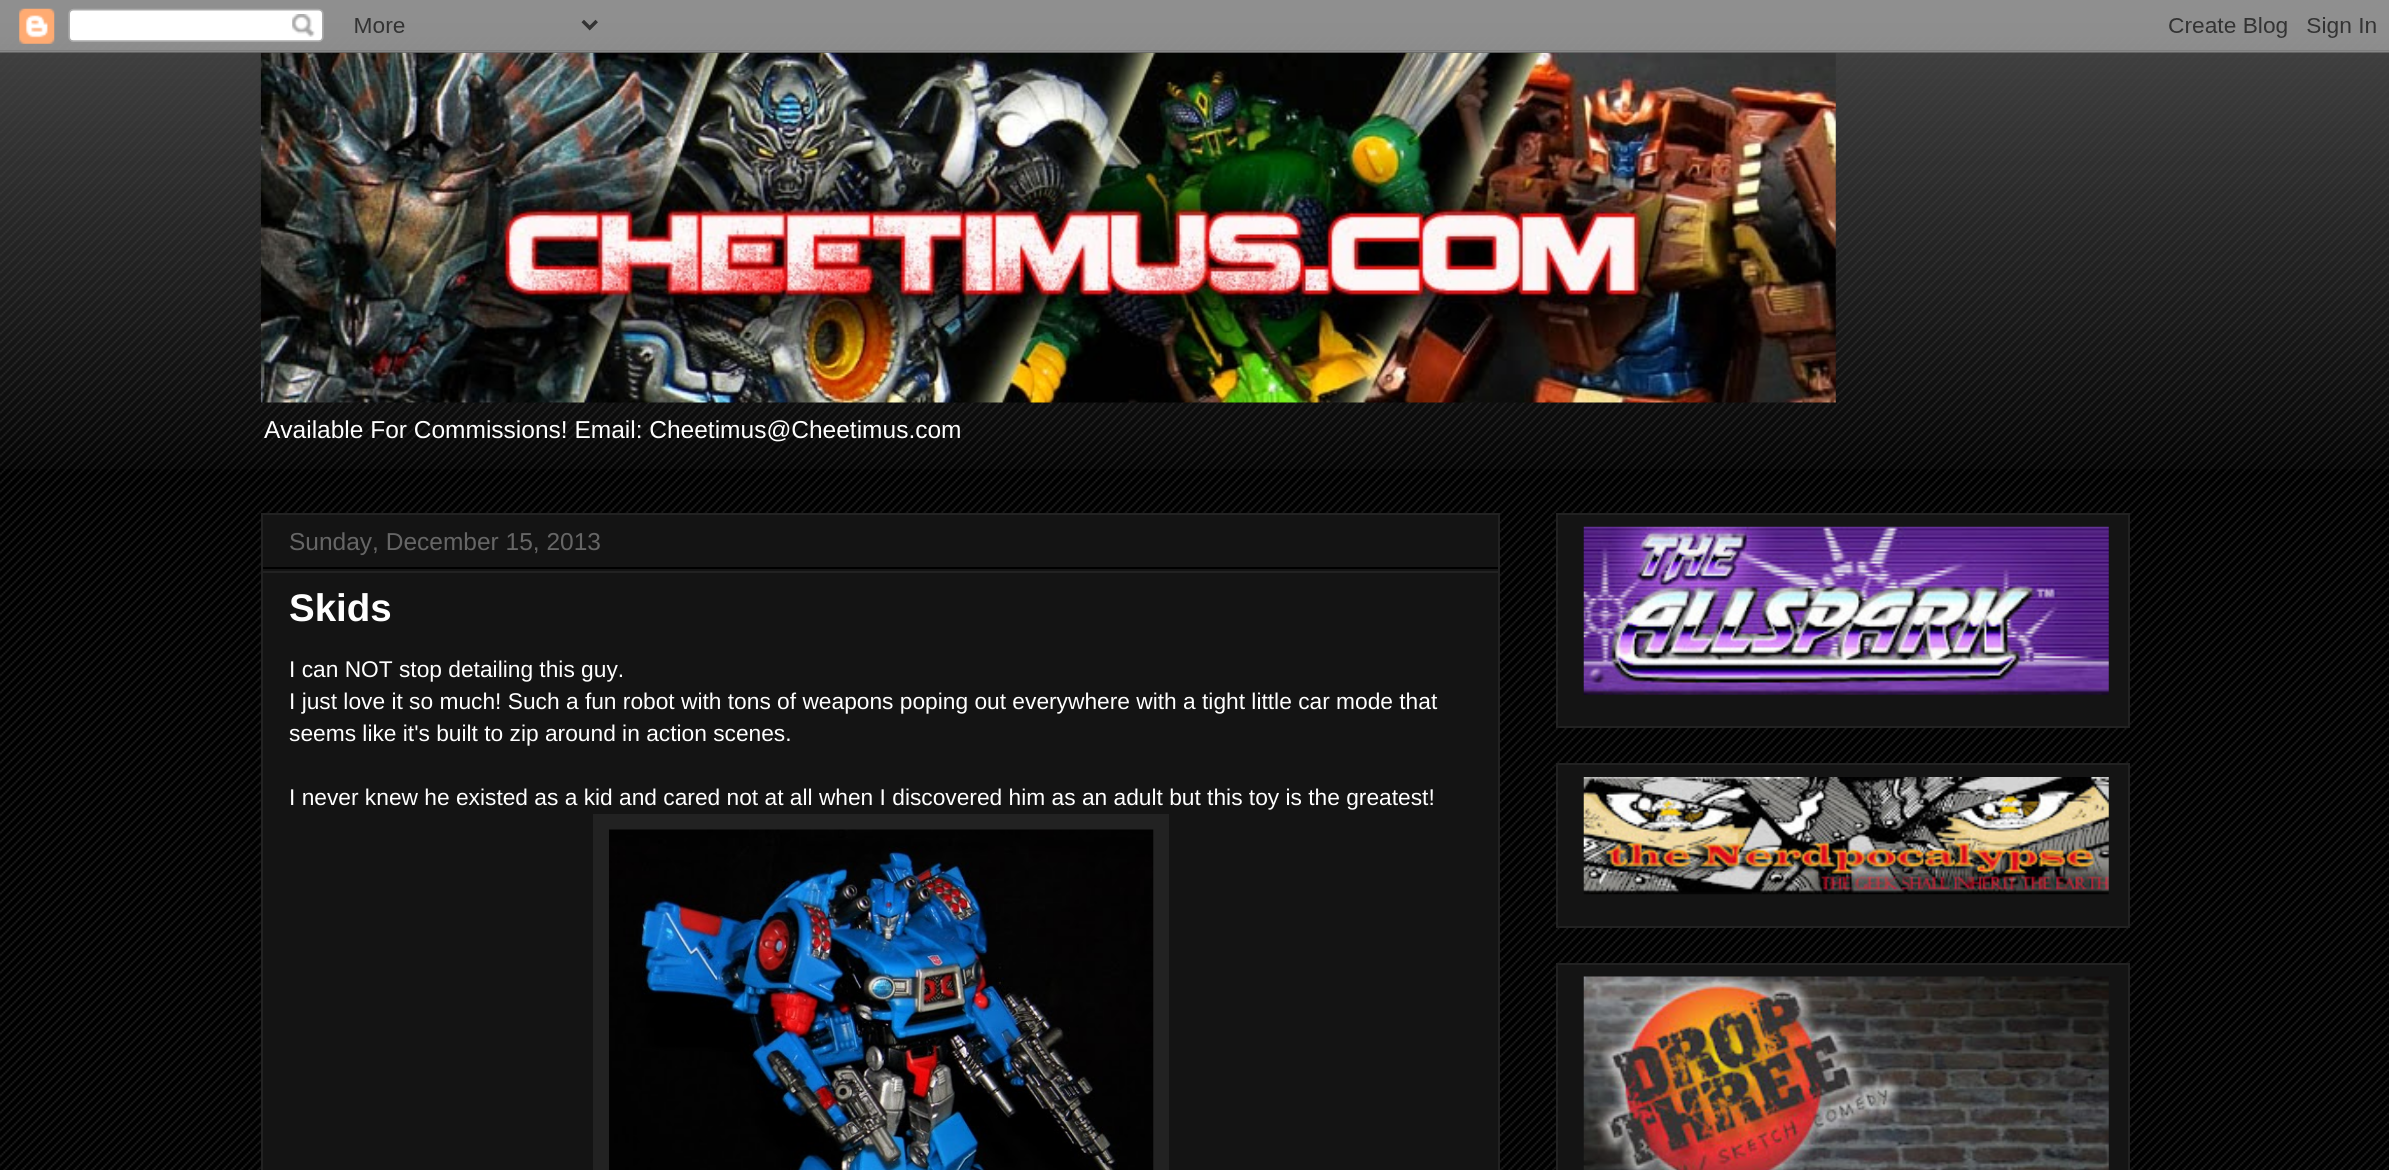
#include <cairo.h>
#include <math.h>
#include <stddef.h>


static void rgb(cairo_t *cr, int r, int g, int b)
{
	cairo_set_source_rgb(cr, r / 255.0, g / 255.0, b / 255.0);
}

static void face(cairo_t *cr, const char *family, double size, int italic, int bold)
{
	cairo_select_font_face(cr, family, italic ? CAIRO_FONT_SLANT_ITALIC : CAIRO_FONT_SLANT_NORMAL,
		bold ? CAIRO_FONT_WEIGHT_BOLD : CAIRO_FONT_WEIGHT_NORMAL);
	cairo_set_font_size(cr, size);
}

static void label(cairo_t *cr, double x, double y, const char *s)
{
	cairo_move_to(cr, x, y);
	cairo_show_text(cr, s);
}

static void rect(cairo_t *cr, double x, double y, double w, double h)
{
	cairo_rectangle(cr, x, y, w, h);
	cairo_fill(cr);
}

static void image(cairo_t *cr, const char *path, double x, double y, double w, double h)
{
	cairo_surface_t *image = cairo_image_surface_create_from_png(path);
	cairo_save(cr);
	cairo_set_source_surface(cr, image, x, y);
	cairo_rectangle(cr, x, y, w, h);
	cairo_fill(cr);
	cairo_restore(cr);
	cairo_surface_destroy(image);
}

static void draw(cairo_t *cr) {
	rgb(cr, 0, 0, 0);
	cairo_paint(cr);
	image(cr, "image0.png", 0, 23, 2389, 1147);
	image(cr, "image1.png", 0, 0, 2389, 469);
	image(cr, "image3.png", 260, 52, 1576, 351);
	image(cr, "image2.png", 0, 0, 2389, 53);
	face(cr, "Liberation Sans", 24.5, 0, 0);
	rgb(cr, 255, 255, 255);
	label(cr, 264, 438, "Available For Commissions! Email: Cheetimus@Cheetimus.com");
	rgb(cr, 20, 20, 20);
	cairo_rectangle(cr, 262, 514, 1237, 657);
	cairo_fill_preserve(cr);
	rgb(cr, 34, 34, 34);
	cairo_stroke(cr);
	rgb(cr, 0, 0, 0);
	rect(cr, 263, 567, 1235, 2);
	rgb(cr, 102, 102, 102);
	label(cr, 289, 550, "Sunday, December 15, 2013");
	rgb(cr, 34, 34, 34);
	rect(cr, 263, 571, 1235, 2);
	face(cr, "Liberation Sans", 38.5, 0, 1);
	rgb(cr, 255, 255, 255);
	label(cr, 289, 621, "Skids");
	face(cr, "Liberation Sans", 22.75, 0, 0);
	label(cr, 289, 677, "I can NOT stop detailing this guy.");
	label(cr, 289, 709, "I just love it so much! Such a fun robot with tons of weapons poping out everywhere with a tight little car mode that");
	label(cr, 289, 741, "seems like it's built to zip around in action scenes.");
	label(cr, 289, 805, "I never knew he existed as a kid and cared not at all when I discovered him as an adult but this toy is the greatest!");
	rgb(cr, 34, 34, 34);
	rect(cr, 593, 814, 576, 356);
	image(cr, "image4.png", 609, 829, 545, 341);
	rgb(cr, 20, 20, 20);
	cairo_rectangle(cr, 1557, 514, 572, 213);
	cairo_fill_preserve(cr);
	rgb(cr, 34, 34, 34);
	cairo_stroke(cr);
	image(cr, "image5.png", 1583, 526, 526, 169);
	rgb(cr, 20, 20, 20);
	cairo_rectangle(cr, 1557, 764, 572, 163);
	cairo_fill_preserve(cr);
	rgb(cr, 34, 34, 34);
	cairo_stroke(cr);
	image(cr, "image6.png", 1583, 777, 526, 118);
	rgb(cr, 20, 20, 20);
	cairo_rectangle(cr, 1557, 964, 572, 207);
	cairo_fill_preserve(cr);
	rgb(cr, 34, 34, 34);
	cairo_stroke(cr);
	image(cr, "image7.png", 1583, 976, 526, 194);
}

int main(void) {
	cairo_surface_t *surface = cairo_image_surface_create(CAIRO_FORMAT_RGB24, 2389, 1170);
	cairo_t *cr = cairo_create(surface);
	cairo_font_options_t *options = cairo_font_options_create();
	cairo_font_options_set_hint_metrics(options, CAIRO_HINT_METRICS_OFF);
	cairo_font_options_set_hint_style(options, CAIRO_HINT_STYLE_NONE);
	cairo_set_font_options(cr, options);
	cairo_set_miter_limit(cr, 4);
	draw(cr);
	cairo_surface_write_to_png(surface, "render.png");
	cairo_font_options_destroy(options);
	cairo_destroy(cr);
	cairo_surface_destroy(surface);
	return 0;
}
